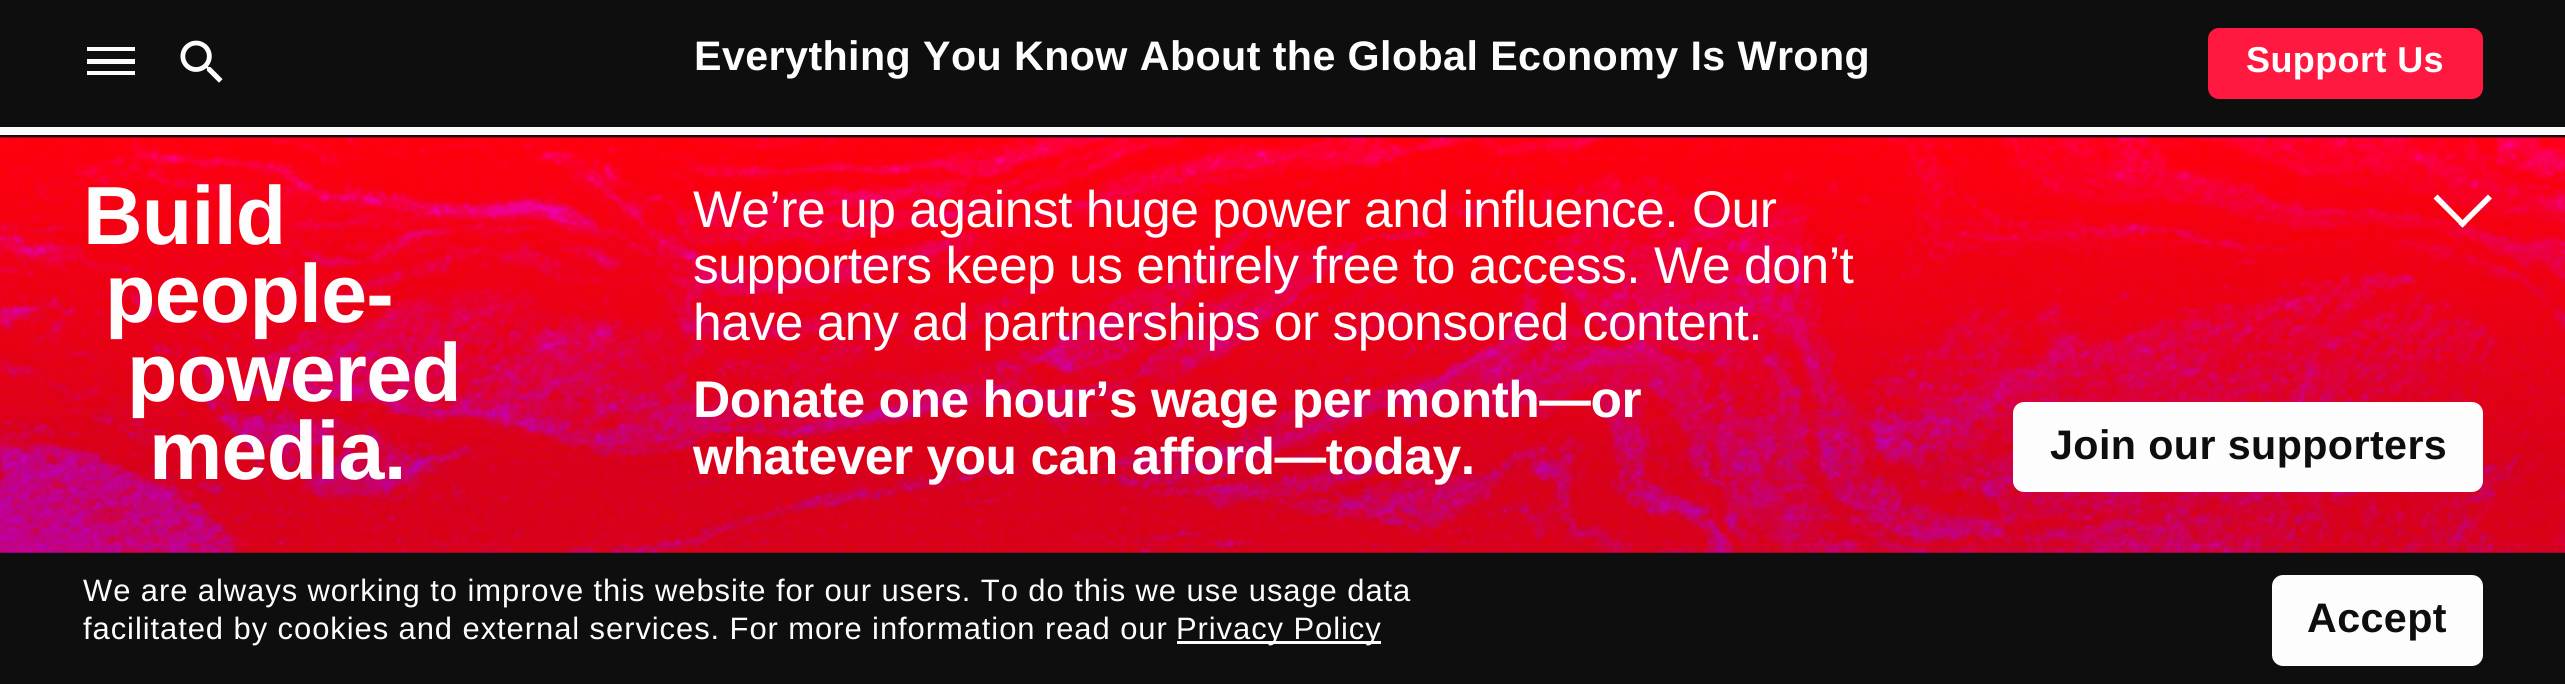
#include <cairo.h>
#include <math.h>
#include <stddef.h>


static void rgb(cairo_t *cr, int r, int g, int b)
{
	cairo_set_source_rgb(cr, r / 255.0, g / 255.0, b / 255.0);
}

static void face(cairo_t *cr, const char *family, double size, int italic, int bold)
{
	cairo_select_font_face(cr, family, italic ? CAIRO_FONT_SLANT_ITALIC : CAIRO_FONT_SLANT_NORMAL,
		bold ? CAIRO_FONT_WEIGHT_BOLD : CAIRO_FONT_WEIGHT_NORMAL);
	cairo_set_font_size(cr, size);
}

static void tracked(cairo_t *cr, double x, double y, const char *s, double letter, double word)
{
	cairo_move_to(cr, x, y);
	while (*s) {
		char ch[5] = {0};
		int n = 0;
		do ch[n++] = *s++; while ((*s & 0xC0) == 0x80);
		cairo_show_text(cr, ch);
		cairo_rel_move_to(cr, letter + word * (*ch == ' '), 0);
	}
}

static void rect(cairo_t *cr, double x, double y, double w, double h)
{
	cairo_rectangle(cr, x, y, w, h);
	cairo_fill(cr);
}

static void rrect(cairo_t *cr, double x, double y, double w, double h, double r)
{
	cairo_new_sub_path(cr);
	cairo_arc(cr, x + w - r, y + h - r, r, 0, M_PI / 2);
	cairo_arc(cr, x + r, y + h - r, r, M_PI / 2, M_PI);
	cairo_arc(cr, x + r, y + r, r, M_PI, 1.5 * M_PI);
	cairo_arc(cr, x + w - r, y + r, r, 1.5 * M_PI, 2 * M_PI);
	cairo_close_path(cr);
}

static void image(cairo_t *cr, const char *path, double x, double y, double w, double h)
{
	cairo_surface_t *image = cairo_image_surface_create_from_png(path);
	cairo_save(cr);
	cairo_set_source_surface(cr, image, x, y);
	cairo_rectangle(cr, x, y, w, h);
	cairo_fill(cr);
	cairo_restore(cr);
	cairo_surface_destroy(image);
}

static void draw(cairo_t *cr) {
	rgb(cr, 253, 253, 253);
	cairo_paint(cr);
	rgb(cr, 14, 14, 14);
	rect(cr, 0, 0, 2565, 127);
	rgb(cr, 253, 253, 253);
	cairo_new_path(cr);
	cairo_move_to(cr, 87, 47);
	cairo_line_to(cr, 135, 47);
	cairo_line_to(cr, 135, 51);
	cairo_line_to(cr, 87, 51);
	cairo_close_path(cr);
	cairo_move_to(cr, 87, 59);
	cairo_line_to(cr, 135, 59);
	cairo_line_to(cr, 135, 64);
	cairo_line_to(cr, 87, 64);
	cairo_close_path(cr);
	cairo_move_to(cr, 87, 71);
	cairo_line_to(cr, 135, 71);
	cairo_line_to(cr, 135, 75);
	cairo_line_to(cr, 87, 75);
	cairo_close_path(cr);
	cairo_fill(cr);
	image(cr, "image0.png", 180, 40, 43, 43);
	face(cr, "Liberation Sans", 41.25, 0, 1);
	tracked(cr, 694, 70, "Everything You Know About the Global Economy Is Wrong", 0.4, 0);
	rgb(cr, 255, 25, 65);
	rrect(cr, 2209.5, 29.5, 272, 68, 9.5);
	cairo_fill_preserve(cr);
	cairo_set_line_width(cr, 3);
	cairo_stroke(cr);
	face(cr, "Liberation Sans", 36, 0, 1);
	rgb(cr, 253, 253, 253);
	tracked(cr, 2246, 72, "Support Us", 0.4, 0);
	rgb(cr, 14, 14, 14);
	rect(cr, 0, 135, 2565, 549);
	image(cr, "image1.png", 0, 136, 2565, 417);
	face(cr, "Liberation Sans", 82.5, 0, 1);
	rgb(cr, 253, 253, 253);
	tracked(cr, 83, 244, "Build", -0.75, 0);
	tracked(cr, 105, 322, "people-", -0.75, 0);
	tracked(cr, 127, 401, "powered", -0.75, 0);
	tracked(cr, 149, 479, "media.", -0.75, 0);
	face(cr, "Liberation Sans", 51.6, 0, 0);
	tracked(cr, 693, 227, "We’re up against huge power and influence. Our", -0.52, 0);
	tracked(cr, 693, 283, "supporters keep us entirely free to access. We don’t", -0.52, 0);
	tracked(cr, 693, 340, "have any ad partnerships or sponsored content.", -0.52, 0);
	face(cr, "Liberation Sans", 51.6, 0, 1);
	tracked(cr, 693, 417, "Donate one hour’s wage per month—or", -0.52, 0);
	tracked(cr, 693, 474, "whatever you can afford—today.", -0.52, 0);
	cairo_new_path(cr);
	cairo_move_to(cr, 2488, 194.5);
	cairo_line_to(cr, 2492, 198.5);
	cairo_line_to(cr, 2462.5, 227.5);
	cairo_line_to(cr, 2458.5, 224);
	cairo_close_path(cr);
	cairo_fill(cr);
	cairo_new_path(cr);
	cairo_move_to(cr, 2437.5, 194.5);
	cairo_line_to(cr, 2466.5, 224);
	cairo_line_to(cr, 2462.5, 227.5);
	cairo_line_to(cr, 2433.5, 198.5);
	cairo_close_path(cr);
	cairo_fill(cr);
	rrect(cr, 2014.5, 403.5, 467, 87, 9.5);
	cairo_fill_preserve(cr);
	cairo_stroke(cr);
	face(cr, "Liberation Sans", 41.25, 0, 1);
	rgb(cr, 14, 14, 14);
	tracked(cr, 2050, 459, "Join our supporters", 0.4, 0);
	face(cr, "Liberation Sans", 30.95, 0, 0);
	rgb(cr, 253, 253, 253);
	tracked(cr, 83, 601, "We are always working to improve this website for our users. To do this we use usage data", 0.93, 0);
	tracked(cr, 83, 639, "facilitated by cookies and external services. For more information read our", 0.93, 0);
	rect(cr, 1177, 641, 204, 3);
	tracked(cr, 1176, 639, "Privacy Policy", 0.93, 0);
	rrect(cr, 2273.5, 576.5, 208, 88, 9.5);
	cairo_fill_preserve(cr);
	cairo_stroke(cr);
	face(cr, "Liberation Sans", 41.25, 0, 1);
	rgb(cr, 14, 14, 14);
	tracked(cr, 2307, 632, "Accept", 0.4, 0);
}

int main(void) {
	cairo_surface_t *surface = cairo_image_surface_create(CAIRO_FORMAT_RGB24, 2565, 684);
	cairo_t *cr = cairo_create(surface);
	cairo_font_options_t *options = cairo_font_options_create();
	cairo_font_options_set_hint_metrics(options, CAIRO_HINT_METRICS_OFF);
	cairo_font_options_set_hint_style(options, CAIRO_HINT_STYLE_NONE);
	cairo_set_font_options(cr, options);
	cairo_set_miter_limit(cr, 4);
	draw(cr);
	cairo_surface_write_to_png(surface, "render.png");
	cairo_font_options_destroy(options);
	cairo_destroy(cr);
	cairo_surface_destroy(surface);
	return 0;
}
